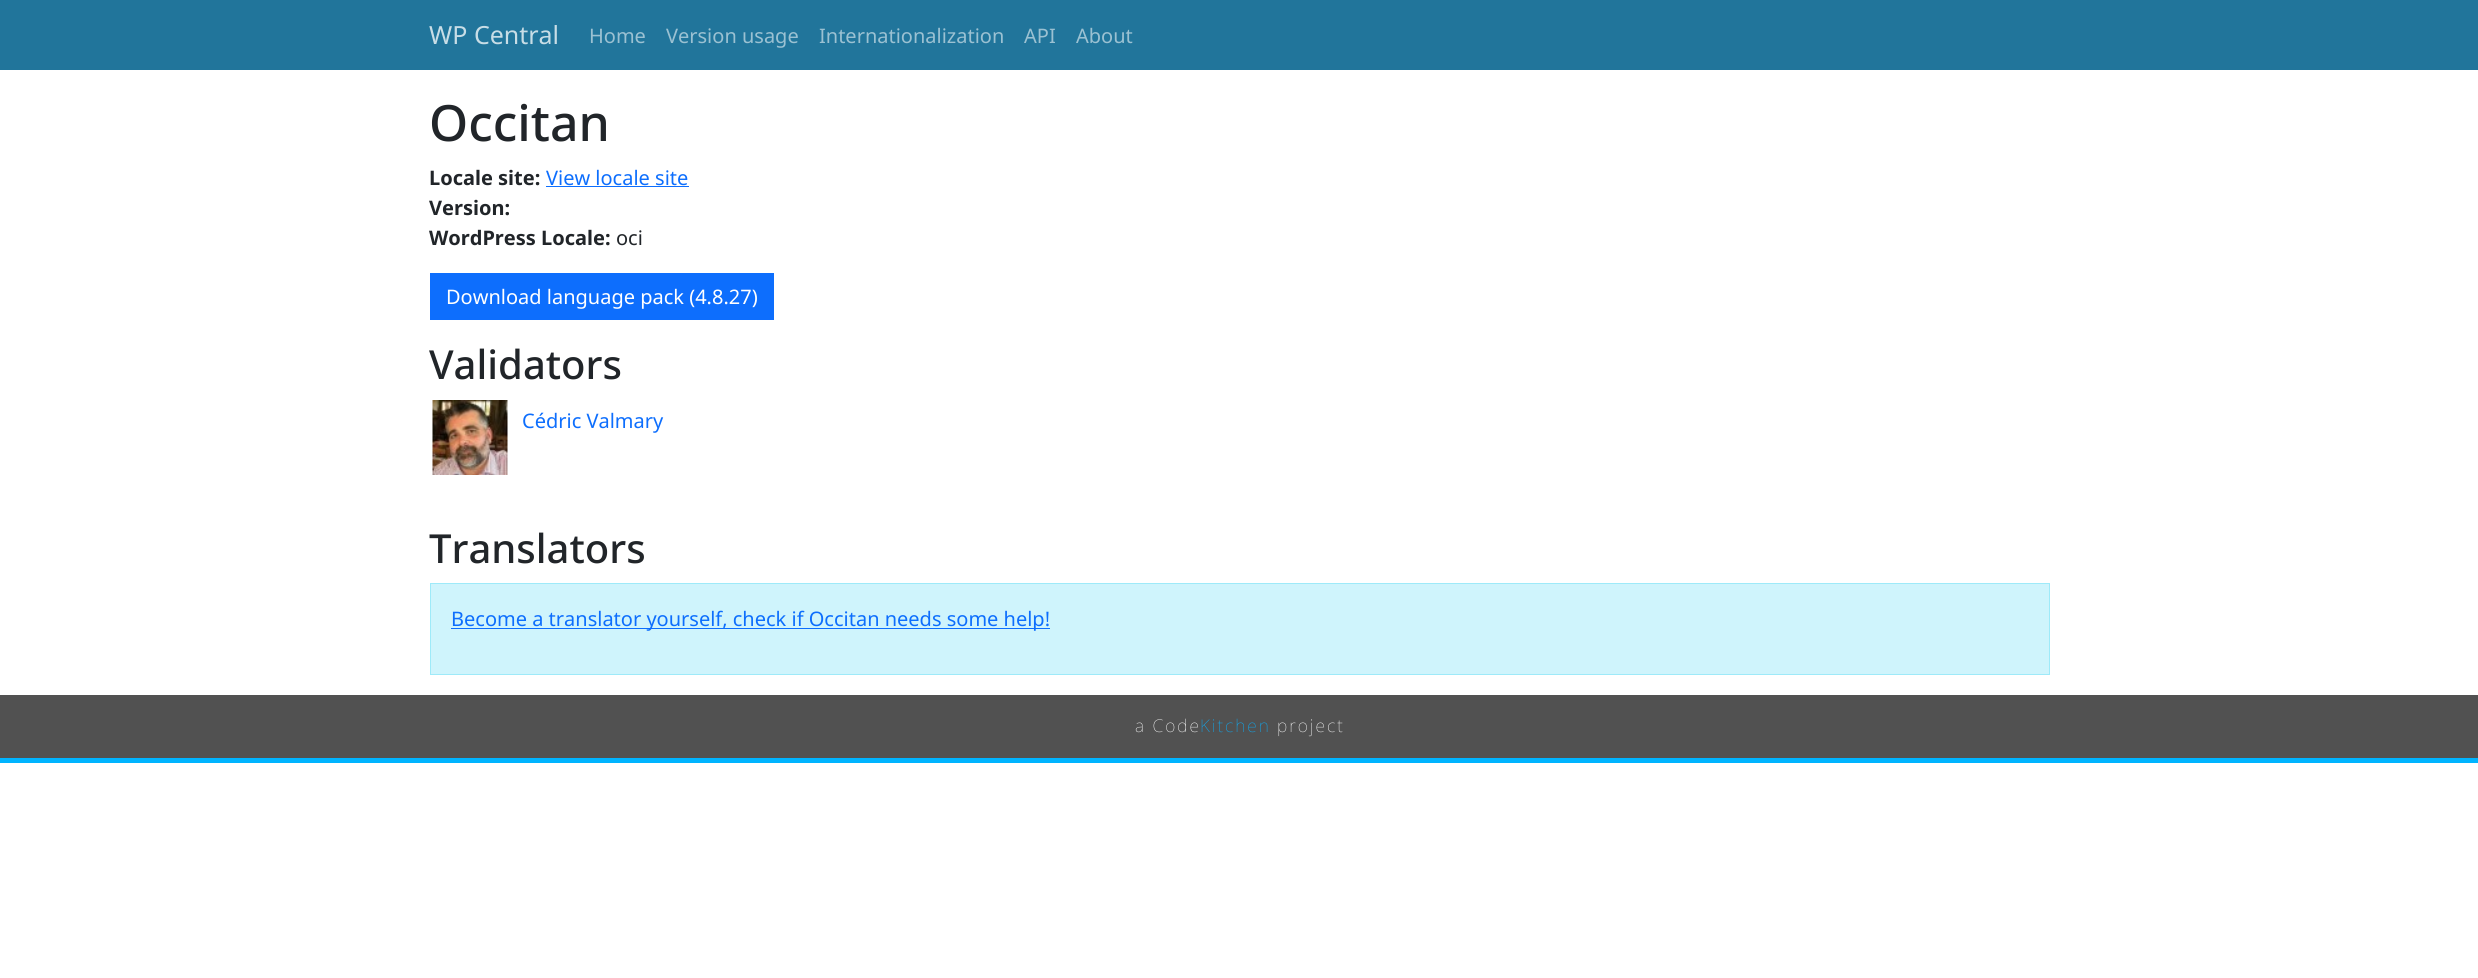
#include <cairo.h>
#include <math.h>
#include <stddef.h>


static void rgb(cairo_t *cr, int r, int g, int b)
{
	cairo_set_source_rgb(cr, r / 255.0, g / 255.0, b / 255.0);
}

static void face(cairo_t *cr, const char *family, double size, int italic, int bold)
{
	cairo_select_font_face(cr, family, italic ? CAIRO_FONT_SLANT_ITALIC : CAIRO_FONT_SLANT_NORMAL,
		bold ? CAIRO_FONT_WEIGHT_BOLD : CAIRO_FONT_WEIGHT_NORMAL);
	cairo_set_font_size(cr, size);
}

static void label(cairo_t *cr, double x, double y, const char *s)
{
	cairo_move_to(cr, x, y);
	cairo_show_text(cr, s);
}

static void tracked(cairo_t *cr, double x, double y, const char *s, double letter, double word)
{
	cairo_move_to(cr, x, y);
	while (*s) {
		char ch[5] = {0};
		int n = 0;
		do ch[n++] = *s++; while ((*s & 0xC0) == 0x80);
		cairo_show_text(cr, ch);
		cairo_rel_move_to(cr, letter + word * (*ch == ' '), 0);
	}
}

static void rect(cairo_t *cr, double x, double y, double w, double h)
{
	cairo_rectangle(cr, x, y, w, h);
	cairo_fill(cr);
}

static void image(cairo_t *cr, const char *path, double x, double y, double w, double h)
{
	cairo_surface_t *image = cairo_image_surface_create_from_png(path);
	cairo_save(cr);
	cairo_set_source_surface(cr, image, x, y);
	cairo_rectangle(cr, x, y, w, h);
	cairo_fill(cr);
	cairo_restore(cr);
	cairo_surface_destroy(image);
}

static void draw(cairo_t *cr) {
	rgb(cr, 255, 255, 255);
	cairo_paint(cr);
	rgb(cr, 33, 117, 155);
	rect(cr, 0, 0, 2478, 70);
	face(cr, "Noto Sans", 25, 0, 0);
	rgb(cr, 200, 221, 230);
	label(cr, 429, 44, "WP Central");
	face(cr, "Noto Sans", 20, 0, 0);
	rgb(cr, 155, 193, 210);
	label(cr, 589, 43, "Home");
	label(cr, 666, 43, "Version usage");
	label(cr, 819, 43, "Internationalization");
	label(cr, 1024, 43, "API");
	label(cr, 1076, 43, "About");
	face(cr, "Noto Sans Medium", 50, 0, 0);
	rgb(cr, 33, 37, 41);
	label(cr, 429, 141, "Occitan");
	face(cr, "Noto Sans", 20, 0, 1);
	label(cr, 429, 185, "Locale site:");
	face(cr, "Noto Sans", 20, 0, 0);
	rgb(cr, 13, 110, 253);
	label(cr, 546, 185, "View locale site");
	rect(cr, 546, 186, 143, 1);
	face(cr, "Noto Sans", 20, 0, 1);
	rgb(cr, 33, 37, 41);
	label(cr, 429, 215, "Version:");
	label(cr, 429, 245, "WordPress Locale:");
	face(cr, "Noto Sans", 20, 0, 0);
	label(cr, 616, 245, "oci");
	rgb(cr, 13, 110, 253);
	rect(cr, 430, 273, 344, 47);
	rgb(cr, 255, 255, 255);
	label(cr, 446, 304, "Download language pack (4.8.27)");
	face(cr, "Noto Sans Medium", 40, 0, 0);
	rgb(cr, 33, 37, 41);
	label(cr, 429, 379, "Validators");
	image(cr, "image0.png", 432, 400, 76, 75);
	face(cr, "Noto Sans", 20, 0, 0);
	rgb(cr, 13, 110, 253);
	label(cr, 522, 428, "Cédric Valmary");
	face(cr, "Noto Sans Medium", 40, 0, 0);
	rgb(cr, 33, 37, 41);
	label(cr, 429, 563, "Translators");
	rgb(cr, 207, 244, 252);
	cairo_rectangle(cr, 430.5, 583.5, 1619, 91);
	cairo_fill_preserve(cr);
	rgb(cr, 158, 234, 249);
	cairo_set_line_width(cr, 1);
	cairo_stroke(cr);
	rgb(cr, 13, 110, 253);
	rect(cr, 451, 628, 599, 1);
	face(cr, "Noto Sans", 20, 0, 0);
	label(cr, 451, 626, "Become a translator yourself, check if Occitan needs some help!");
	rgb(cr, 81, 81, 81);
	rect(cr, 0, 695, 2478, 63);
	rgb(cr, 0, 180, 255);
	rect(cr, 0, 758, 2478, 5);
	face(cr, "Noto Sans Thin", 17.5, 0, 0);
	rgb(cr, 255, 255, 255);
	tracked(cr, 1135, 732, "a Code", 2, 0);
	rgb(cr, 8, 177, 255);
	tracked(cr, 1200, 732, "Kitchen", 2, 0);
	rgb(cr, 255, 255, 255);
	tracked(cr, 1277, 732, "project", 2, 0);
}

int main(void) {
	cairo_surface_t *surface = cairo_image_surface_create(CAIRO_FORMAT_RGB24, 2478, 978);
	cairo_t *cr = cairo_create(surface);
	cairo_font_options_t *options = cairo_font_options_create();
	cairo_font_options_set_hint_metrics(options, CAIRO_HINT_METRICS_OFF);
	cairo_font_options_set_hint_style(options, CAIRO_HINT_STYLE_NONE);
	cairo_set_font_options(cr, options);
	cairo_set_miter_limit(cr, 4);
	draw(cr);
	cairo_surface_write_to_png(surface, "render.png");
	cairo_font_options_destroy(options);
	cairo_destroy(cr);
	cairo_surface_destroy(surface);
	return 0;
}
